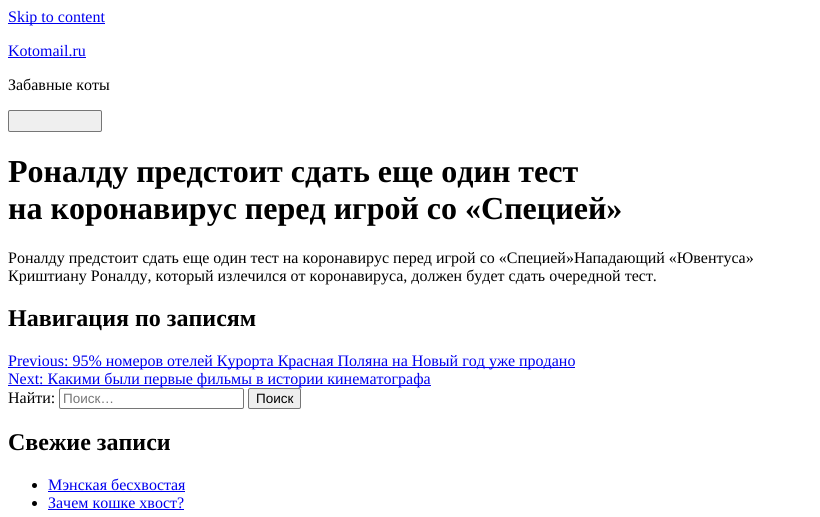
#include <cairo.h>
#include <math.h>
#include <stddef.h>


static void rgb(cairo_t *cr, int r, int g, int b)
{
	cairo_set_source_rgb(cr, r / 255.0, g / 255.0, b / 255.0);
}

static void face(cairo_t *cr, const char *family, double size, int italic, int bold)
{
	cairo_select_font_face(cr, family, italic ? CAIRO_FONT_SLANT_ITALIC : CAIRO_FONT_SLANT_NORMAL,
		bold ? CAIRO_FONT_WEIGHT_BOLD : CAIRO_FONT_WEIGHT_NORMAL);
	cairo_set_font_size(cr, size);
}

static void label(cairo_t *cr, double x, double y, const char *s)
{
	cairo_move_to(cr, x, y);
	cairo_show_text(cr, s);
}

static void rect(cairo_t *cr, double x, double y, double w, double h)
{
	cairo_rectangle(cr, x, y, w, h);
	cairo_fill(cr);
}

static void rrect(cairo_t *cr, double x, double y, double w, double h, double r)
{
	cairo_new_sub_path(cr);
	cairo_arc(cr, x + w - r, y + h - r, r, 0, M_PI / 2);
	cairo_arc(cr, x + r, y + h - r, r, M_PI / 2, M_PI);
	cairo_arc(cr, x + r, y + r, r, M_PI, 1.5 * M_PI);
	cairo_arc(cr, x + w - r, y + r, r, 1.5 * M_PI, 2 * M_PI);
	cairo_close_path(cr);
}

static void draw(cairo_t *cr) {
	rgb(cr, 255, 255, 255);
	cairo_paint(cr);
	rgb(cr, 0, 0, 238);
	rect(cr, 8, 23, 97, 1);
	face(cr, "Liberation Serif", 16, 0, 0);
	label(cr, 8, 22, "Skip to content");
	label(cr, 8, 56, "Kotomail.ru");
	rect(cr, 8, 57, 78, 1);
	rgb(cr, 0, 0, 0);
	label(cr, 8, 90, "Забавные коты");
	rgb(cr, 239, 239, 239);
	rrect(cr, 8.5, 110.5, 93, 21, 1.5);
	cairo_fill_preserve(cr);
	rgb(cr, 118, 118, 118);
	cairo_set_line_width(cr, 1);
	cairo_stroke(cr);
	face(cr, "Liberation Serif", 32, 0, 1);
	rgb(cr, 0, 0, 0);
	label(cr, 8, 182, "Роналду предстоит сдать еще один тест");
	label(cr, 8, 219, "на коронавирус перед игрой со «Специей»");
	face(cr, "Liberation Serif", 16, 0, 0);
	label(cr, 8, 263, "Роналду предстоит сдать еще один тест на коронавирус перед игрой со «Специей»Нападающий «Ювентуса»");
	label(cr, 8, 281, "Криштиану Роналду, который излечился от коронавируса, должен будет сдать очередной тест.");
	face(cr, "Liberation Serif", 24, 0, 1);
	label(cr, 8, 326, "Навигация по записям");
	rgb(cr, 0, 0, 238);
	rect(cr, 8, 367, 567, 1);
	face(cr, "Liberation Serif", 16, 0, 0);
	label(cr, 8, 366, "Previous: 95% номеров отелей Курорта Красная Поляна на Новый год уже продано");
	rect(cr, 8, 385, 423, 1);
	label(cr, 8, 384, "Next: Какими были первые фильмы в истории кинематографа");
	rgb(cr, 0, 0, 0);
	label(cr, 8, 403, "Найти:");
	rrect(cr, 59.5, 388.5, 184, 20, 1.5);
	rgb(cr, 118, 118, 118);
	cairo_stroke(cr);
	face(cr, "Liberation Sans", 13.5, 0, 0);
	rgb(cr, 117, 117, 117);
	label(cr, 63, 403, "Поиск…");
	rgb(cr, 239, 239, 239);
	rrect(cr, 248.5, 388.5, 52, 20, 1.5);
	cairo_fill_preserve(cr);
	rgb(cr, 118, 118, 118);
	cairo_stroke(cr);
	rgb(cr, 0, 0, 0);
	label(cr, 256, 403, "Поиск");
	face(cr, "Liberation Serif", 24, 0, 1);
	label(cr, 8, 450, "Свежие записи");
	cairo_new_path(cr);
	cairo_arc(cr, 34.5, 485.5, 2.5, 0, 2 * M_PI);
	cairo_fill(cr);
	face(cr, "Liberation Serif", 16, 0, 0);
	rgb(cr, 0, 0, 238);
	label(cr, 48, 490, "Мэнская бесхвостая");
	rect(cr, 48, 491, 137, 1);
	rgb(cr, 0, 0, 0);
	cairo_new_path(cr);
	cairo_arc(cr, 34.5, 503.5, 2.5, 0, 2 * M_PI);
	cairo_fill(cr);
	rgb(cr, 0, 0, 238);
	label(cr, 48, 508, "Зачем кошке хвост?");
	rect(cr, 48, 509, 136, 1);
}

int main(void) {
	cairo_surface_t *surface = cairo_image_surface_create(CAIRO_FORMAT_RGB24, 820, 517);
	cairo_t *cr = cairo_create(surface);
	cairo_font_options_t *options = cairo_font_options_create();
	cairo_font_options_set_hint_metrics(options, CAIRO_HINT_METRICS_OFF);
	cairo_font_options_set_hint_style(options, CAIRO_HINT_STYLE_NONE);
	cairo_set_font_options(cr, options);
	cairo_set_miter_limit(cr, 4);
	draw(cr);
	cairo_surface_write_to_png(surface, "render.png");
	cairo_font_options_destroy(options);
	cairo_destroy(cr);
	cairo_surface_destroy(surface);
	return 0;
}
